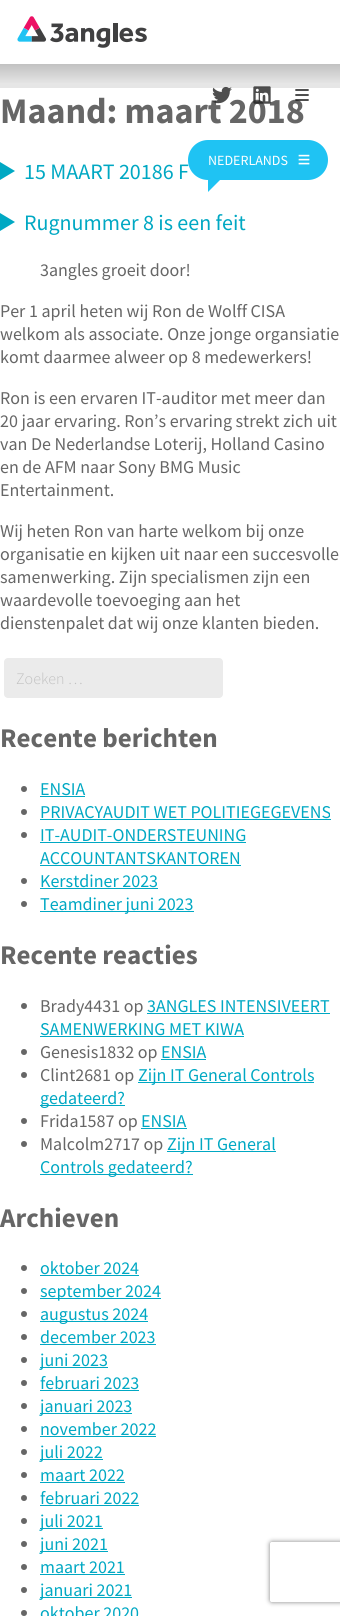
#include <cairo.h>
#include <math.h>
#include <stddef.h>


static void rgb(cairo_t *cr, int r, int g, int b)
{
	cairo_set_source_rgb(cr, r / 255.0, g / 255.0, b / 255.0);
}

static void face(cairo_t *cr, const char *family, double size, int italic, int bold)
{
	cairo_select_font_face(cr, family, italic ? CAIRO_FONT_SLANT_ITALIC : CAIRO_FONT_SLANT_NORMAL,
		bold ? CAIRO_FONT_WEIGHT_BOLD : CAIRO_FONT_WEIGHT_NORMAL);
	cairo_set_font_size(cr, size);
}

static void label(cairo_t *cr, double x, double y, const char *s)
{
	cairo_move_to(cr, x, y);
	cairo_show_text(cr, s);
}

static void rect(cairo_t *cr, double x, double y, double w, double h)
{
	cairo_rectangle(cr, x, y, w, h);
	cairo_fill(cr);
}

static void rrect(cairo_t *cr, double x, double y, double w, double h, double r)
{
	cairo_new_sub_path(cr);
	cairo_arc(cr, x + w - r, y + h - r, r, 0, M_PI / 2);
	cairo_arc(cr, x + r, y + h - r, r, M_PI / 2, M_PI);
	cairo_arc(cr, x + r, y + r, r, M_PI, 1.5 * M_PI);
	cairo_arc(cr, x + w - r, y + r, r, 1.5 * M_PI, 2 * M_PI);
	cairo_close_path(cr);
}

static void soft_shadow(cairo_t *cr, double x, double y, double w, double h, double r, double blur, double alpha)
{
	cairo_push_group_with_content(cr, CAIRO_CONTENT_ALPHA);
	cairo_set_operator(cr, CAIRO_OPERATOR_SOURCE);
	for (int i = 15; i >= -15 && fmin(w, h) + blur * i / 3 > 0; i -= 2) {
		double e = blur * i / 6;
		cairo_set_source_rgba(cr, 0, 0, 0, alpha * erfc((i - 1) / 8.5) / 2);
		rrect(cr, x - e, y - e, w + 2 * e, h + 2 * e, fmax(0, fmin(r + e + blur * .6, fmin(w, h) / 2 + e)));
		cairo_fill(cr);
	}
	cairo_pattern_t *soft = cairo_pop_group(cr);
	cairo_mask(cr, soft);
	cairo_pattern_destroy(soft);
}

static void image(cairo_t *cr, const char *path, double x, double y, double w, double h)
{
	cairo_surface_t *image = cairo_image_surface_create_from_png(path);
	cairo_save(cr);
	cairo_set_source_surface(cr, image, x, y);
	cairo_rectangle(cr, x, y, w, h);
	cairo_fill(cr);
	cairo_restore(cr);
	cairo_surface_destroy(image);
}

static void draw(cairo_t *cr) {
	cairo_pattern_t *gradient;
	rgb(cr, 230, 230, 230);
	cairo_paint(cr);
	rgb(cr, 255, 255, 255);
	rect(cr, 0, 88, 340, 1528);
	face(cr, "Source Sans Pro", 36, 0, 1);
	rgb(cr, 102, 102, 102);
	label(cr, 0, 123, "Maand: maart 2018");
	rgb(cr, 0, 168, 195);
	cairo_new_path(cr);
	cairo_move_to(cr, 0, 180);
	cairo_line_to(cr, 0, 162);
	cairo_line_to(cr, 15, 171);
	cairo_close_path(cr);
	cairo_fill(cr);
	face(cr, "Source Sans Pro", 22, 0, 0);
	label(cr, 24, 179, "15 MAART 20186 F");
	cairo_new_path(cr);
	cairo_move_to(cr, 0, 231);
	cairo_line_to(cr, 0, 213);
	cairo_line_to(cr, 15, 222);
	cairo_close_path(cr);
	cairo_fill(cr);
	label(cr, 24, 230, "Rugnummer 8 is een feit");
	face(cr, "Source Sans Pro", 18, 0, 0);
	rgb(cr, 102, 102, 102);
	label(cr, 40, 276, "3angles groeit door!");
	label(cr, 0, 317, "Per 1 april heten wij Ron de Wolff CISA");
	label(cr, 0, 340, "welkom als associate. Onze jonge organsiatie");
	label(cr, 0, 363, "komt daarmee alweer op 8 medewerkers!");
	label(cr, 0, 404, "Ron is een ervaren IT-auditor met meer dan");
	label(cr, 0, 427, "20 jaar ervaring. Ron’s ervaring strekt zich uit");
	label(cr, 0, 450, "van De Nederlandse Loterij, Holland Casino");
	label(cr, 0, 473, "en de AFM naar Sony BMG Music");
	label(cr, 0, 496, "Entertainment.");
	label(cr, 0, 537, "Wij heten Ron van harte welkom bij onze");
	label(cr, 0, 560, "organisatie en kijken uit naar een succesvolle");
	label(cr, 0, 583, "samenwerking. Zijn specialismen zijn een");
	label(cr, 0, 606, "waardevolle toevoeging aan het");
	label(cr, 0, 629, "dienstenpalet dat wij onze klanten bieden.");
	rgb(cr, 235, 235, 235);
	rrect(cr, 4, 658, 219, 40, 4);
	cairo_fill(cr);
	face(cr, "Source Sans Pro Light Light", 16, 0, 0);
	rgb(cr, 193, 193, 193);
	label(cr, 16, 684, "Zoeken …");
	face(cr, "Source Sans Pro", 27, 0, 1);
	rgb(cr, 102, 102, 102);
	label(cr, 0, 747, "Recente berichten");
	cairo_new_path(cr);
	cairo_arc(cr, 24, 789, 3, 0, 2 * M_PI);
	cairo_fill(cr);
	face(cr, "Source Sans Pro", 18, 0, 0);
	rgb(cr, 0, 168, 195);
	label(cr, 40, 795, "ENSIA");
	rect(cr, 40, 796, 45, 1);
	rgb(cr, 102, 102, 102);
	cairo_new_path(cr);
	cairo_arc(cr, 24, 812, 3, 0, 2 * M_PI);
	cairo_fill(cr);
	rgb(cr, 0, 168, 195);
	label(cr, 40, 818, "PRIVACYAUDIT WET POLITIEGEGEVENS");
	rect(cr, 40, 819, 291, 1);
	rgb(cr, 102, 102, 102);
	cairo_new_path(cr);
	cairo_arc(cr, 24, 835, 3, 0, 2 * M_PI);
	cairo_fill(cr);
	rgb(cr, 0, 168, 195);
	label(cr, 40, 841, "IT-AUDIT-ONDERSTEUNING");
	rect(cr, 40, 842, 206, 1);
	label(cr, 40, 864, "ACCOUNTANTSKANTOREN");
	rect(cr, 40, 865, 201, 1);
	rgb(cr, 102, 102, 102);
	cairo_new_path(cr);
	cairo_arc(cr, 24, 881, 3, 0, 2 * M_PI);
	cairo_fill(cr);
	rgb(cr, 0, 168, 195);
	label(cr, 40, 887, "Kerstdiner 2023");
	rect(cr, 40, 888, 118, 1);
	rgb(cr, 102, 102, 102);
	cairo_new_path(cr);
	cairo_arc(cr, 24, 904, 3, 0, 2 * M_PI);
	cairo_fill(cr);
	rgb(cr, 0, 168, 195);
	rect(cr, 40, 911, 154, 1);
	label(cr, 40, 910, "Teamdiner juni 2023");
	face(cr, "Source Sans Pro", 27, 0, 1);
	rgb(cr, 102, 102, 102);
	label(cr, 0, 964, "Recente reacties");
	cairo_new_path(cr);
	cairo_arc(cr, 24, 1006, 3, 0, 2 * M_PI);
	cairo_fill(cr);
	face(cr, "Source Sans Pro", 18, 0, 0);
	label(cr, 40, 1012, "Brady4431 op");
	rgb(cr, 0, 168, 195);
	label(cr, 147, 1012, "3ANGLES INTENSIVEERT");
	rect(cr, 147, 1013, 183, 1);
	label(cr, 40, 1035, "SAMENWERKING MET KIWA");
	rect(cr, 40, 1036, 204, 1);
	rgb(cr, 102, 102, 102);
	cairo_new_path(cr);
	cairo_arc(cr, 24, 1052, 3, 0, 2 * M_PI);
	cairo_fill(cr);
	label(cr, 40, 1058, "Genesis1832 op");
	rgb(cr, 0, 168, 195);
	label(cr, 161, 1058, "ENSIA");
	rect(cr, 161, 1059, 45, 1);
	rgb(cr, 102, 102, 102);
	cairo_new_path(cr);
	cairo_arc(cr, 24, 1075, 3, 0, 2 * M_PI);
	cairo_fill(cr);
	label(cr, 40, 1081, "Clint2681 op");
	rgb(cr, 0, 168, 195);
	rect(cr, 138, 1082, 176, 1);
	label(cr, 138, 1081, "Zijn IT General Controls");
	rect(cr, 40, 1105, 85, 1);
	label(cr, 40, 1104, "gedateerd?");
	rgb(cr, 102, 102, 102);
	cairo_new_path(cr);
	cairo_arc(cr, 24, 1121, 3, 0, 2 * M_PI);
	cairo_fill(cr);
	label(cr, 40, 1127, "Frida1587 op");
	rgb(cr, 0, 168, 195);
	label(cr, 141, 1127, "ENSIA");
	rect(cr, 141, 1128, 46, 1);
	rgb(cr, 102, 102, 102);
	cairo_new_path(cr);
	cairo_arc(cr, 24, 1144, 3, 0, 2 * M_PI);
	cairo_fill(cr);
	label(cr, 40, 1150, "Malcolm2717 op");
	rgb(cr, 0, 168, 195);
	rect(cr, 167, 1151, 109, 1);
	label(cr, 167, 1150, "Zijn IT General");
	rect(cr, 40, 1174, 153, 1);
	label(cr, 40, 1173, "Controls gedateerd?");
	face(cr, "Source Sans Pro", 27, 0, 1);
	rgb(cr, 102, 102, 102);
	label(cr, 0, 1227, "Archieven");
	cairo_new_path(cr);
	cairo_arc(cr, 24, 1268, 3, 0, 2 * M_PI);
	cairo_fill(cr);
	face(cr, "Source Sans Pro", 18, 0, 0);
	rgb(cr, 0, 168, 195);
	label(cr, 40, 1274, "oktober 2024");
	rect(cr, 40, 1275, 99, 1);
	rgb(cr, 102, 102, 102);
	cairo_new_path(cr);
	cairo_arc(cr, 24, 1291, 3, 0, 2 * M_PI);
	cairo_fill(cr);
	rgb(cr, 0, 168, 195);
	rect(cr, 40, 1298, 121, 1);
	label(cr, 40, 1297, "september 2024");
	rgb(cr, 102, 102, 102);
	cairo_new_path(cr);
	cairo_arc(cr, 24, 1314, 3, 0, 2 * M_PI);
	cairo_fill(cr);
	rgb(cr, 0, 168, 195);
	rect(cr, 40, 1321, 108, 1);
	label(cr, 40, 1320, "augustus 2024");
	rgb(cr, 102, 102, 102);
	cairo_new_path(cr);
	cairo_arc(cr, 24, 1337, 3, 0, 2 * M_PI);
	cairo_fill(cr);
	rgb(cr, 0, 168, 195);
	label(cr, 40, 1343, "december 2023");
	rect(cr, 40, 1344, 116, 1);
	rgb(cr, 102, 102, 102);
	cairo_new_path(cr);
	cairo_arc(cr, 24, 1360, 3, 0, 2 * M_PI);
	cairo_fill(cr);
	rgb(cr, 0, 168, 195);
	rect(cr, 40, 1367, 68, 1);
	label(cr, 40, 1366, "juni 2023");
	rgb(cr, 102, 102, 102);
	cairo_new_path(cr);
	cairo_arc(cr, 24, 1383, 3, 0, 2 * M_PI);
	cairo_fill(cr);
	rgb(cr, 0, 168, 195);
	label(cr, 40, 1389, "februari 2023");
	rect(cr, 40, 1390, 99, 1);
	rgb(cr, 102, 102, 102);
	cairo_new_path(cr);
	cairo_arc(cr, 24, 1406, 3, 0, 2 * M_PI);
	cairo_fill(cr);
	rgb(cr, 0, 168, 195);
	rect(cr, 40, 1413, 92, 1);
	label(cr, 40, 1412, "januari 2023");
	rgb(cr, 102, 102, 102);
	cairo_new_path(cr);
	cairo_arc(cr, 24, 1429, 3, 0, 2 * M_PI);
	cairo_fill(cr);
	rgb(cr, 0, 168, 195);
	label(cr, 40, 1435, "november 2022");
	rect(cr, 40, 1436, 116, 1);
	rgb(cr, 102, 102, 102);
	cairo_new_path(cr);
	cairo_arc(cr, 24, 1452, 3, 0, 2 * M_PI);
	cairo_fill(cr);
	rgb(cr, 0, 168, 195);
	rect(cr, 40, 1459, 63, 1);
	label(cr, 40, 1458, "juli 2022");
	rgb(cr, 102, 102, 102);
	cairo_new_path(cr);
	cairo_arc(cr, 24, 1475, 3, 0, 2 * M_PI);
	cairo_fill(cr);
	rgb(cr, 0, 168, 195);
	label(cr, 40, 1481, "maart 2022");
	rect(cr, 40, 1482, 85, 1);
	rgb(cr, 102, 102, 102);
	cairo_new_path(cr);
	cairo_arc(cr, 24, 1498, 3, 0, 2 * M_PI);
	cairo_fill(cr);
	rgb(cr, 0, 168, 195);
	label(cr, 40, 1504, "februari 2022");
	rect(cr, 40, 1505, 99, 1);
	rgb(cr, 102, 102, 102);
	cairo_new_path(cr);
	cairo_arc(cr, 24, 1521, 3, 0, 2 * M_PI);
	cairo_fill(cr);
	rgb(cr, 0, 168, 195);
	rect(cr, 40, 1528, 63, 1);
	label(cr, 40, 1527, "juli 2021");
	rgb(cr, 102, 102, 102);
	cairo_new_path(cr);
	cairo_arc(cr, 24, 1544, 3, 0, 2 * M_PI);
	cairo_fill(cr);
	rgb(cr, 0, 168, 195);
	rect(cr, 40, 1551, 68, 1);
	label(cr, 40, 1550, "juni 2021");
	rgb(cr, 102, 102, 102);
	cairo_new_path(cr);
	cairo_arc(cr, 24, 1567, 3, 0, 2 * M_PI);
	cairo_fill(cr);
	rgb(cr, 0, 168, 195);
	label(cr, 40, 1573, "maart 2021");
	rect(cr, 40, 1574, 85, 1);
	rgb(cr, 102, 102, 102);
	cairo_new_path(cr);
	cairo_arc(cr, 24, 1590, 3, 0, 2 * M_PI);
	cairo_fill(cr);
	rgb(cr, 0, 168, 195);
	rect(cr, 40, 1597, 92, 1);
	label(cr, 40, 1596, "januari 2021");
	rgb(cr, 102, 102, 102);
	cairo_new_path(cr);
	cairo_arc(cr, 24, 1613, 3, 0, 2 * M_PI);
	cairo_fill(cr);
	rgb(cr, 0, 168, 195);
	label(cr, 40, 1619, "oktober 2020");
	rgb(cr, 255, 255, 255);
	rect(cr, 0, 0, 340, 64);
	image(cr, "image0.png", 17, 16, 130, 32);
	gradient = cairo_pattern_create_linear(170, 64, 170, 84);
	cairo_pattern_add_color_stop_rgba(gradient, 0, 0.757, 0.757, 0.757, 1);
	cairo_pattern_add_color_stop_rgba(gradient, 1, 0.902, 0.902, 0.902, 1);
	cairo_set_source(cr, gradient);
	cairo_pattern_destroy(gradient);
	rect(cr, 0, 64, 340, 19);
	image(cr, "image1.png", 212, 86, 20, 18);
	image(cr, "image2.png", 253, 86, 18, 18);
	image(cr, "image3.png", 295, 89, 14, 12);
	rgb(cr, 31, 195, 243);
	rrect(cr, 188, 140, 140, 40, 20);
	cairo_fill(cr);
	face(cr, "Source Sans Pro", 14, 0, 0);
	rgb(cr, 255, 255, 255);
	label(cr, 208, 165, "NEDERLANDS");
	image(cr, "image4.png", 298, 154, 12, 11);
	rgb(cr, 31, 195, 243);
	cairo_new_path(cr);
	cairo_move_to(cr, 208, 176);
	cairo_line_to(cr, 224, 176);
	cairo_line_to(cr, 208, 192);
	cairo_close_path(cr);
	cairo_fill(cr);
	cairo_save(cr);
	cairo_set_fill_rule(cr, CAIRO_FILL_RULE_EVEN_ODD);
	cairo_new_path(cr);
	cairo_move_to(cr, 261, 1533);
	cairo_line_to(cr, 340, 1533);
	cairo_line_to(cr, 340, 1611);
	cairo_line_to(cr, 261, 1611);
	cairo_close_path(cr);
	cairo_move_to(cr, 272, 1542);
	cairo_line_to(cr, 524, 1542);
	cairo_curve_to(cr, 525, 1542, 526, 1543, 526, 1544);
	cairo_line_to(cr, 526, 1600);
	cairo_curve_to(cr, 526, 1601, 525, 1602, 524, 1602);
	cairo_line_to(cr, 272, 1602);
	cairo_curve_to(cr, 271, 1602, 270, 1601, 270, 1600);
	cairo_line_to(cr, 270, 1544);
	cairo_curve_to(cr, 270, 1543, 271, 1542, 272, 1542);
	cairo_close_path(cr);
	cairo_clip(cr);
	rgb(cr, 128, 128, 128);
	soft_shadow(cr, 270, 1542, 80, 60, 2, 2.5, 1);
	cairo_restore(cr);
}

int main(void) {
	cairo_surface_t *surface = cairo_image_surface_create(CAIRO_FORMAT_RGB24, 340, 1616);
	cairo_t *cr = cairo_create(surface);
	cairo_font_options_t *options = cairo_font_options_create();
	cairo_font_options_set_hint_metrics(options, CAIRO_HINT_METRICS_OFF);
	cairo_font_options_set_hint_style(options, CAIRO_HINT_STYLE_NONE);
	cairo_set_font_options(cr, options);
	cairo_set_miter_limit(cr, 4);
	draw(cr);
	cairo_surface_write_to_png(surface, "render.png");
	cairo_font_options_destroy(options);
	cairo_destroy(cr);
	cairo_surface_destroy(surface);
	return 0;
}
